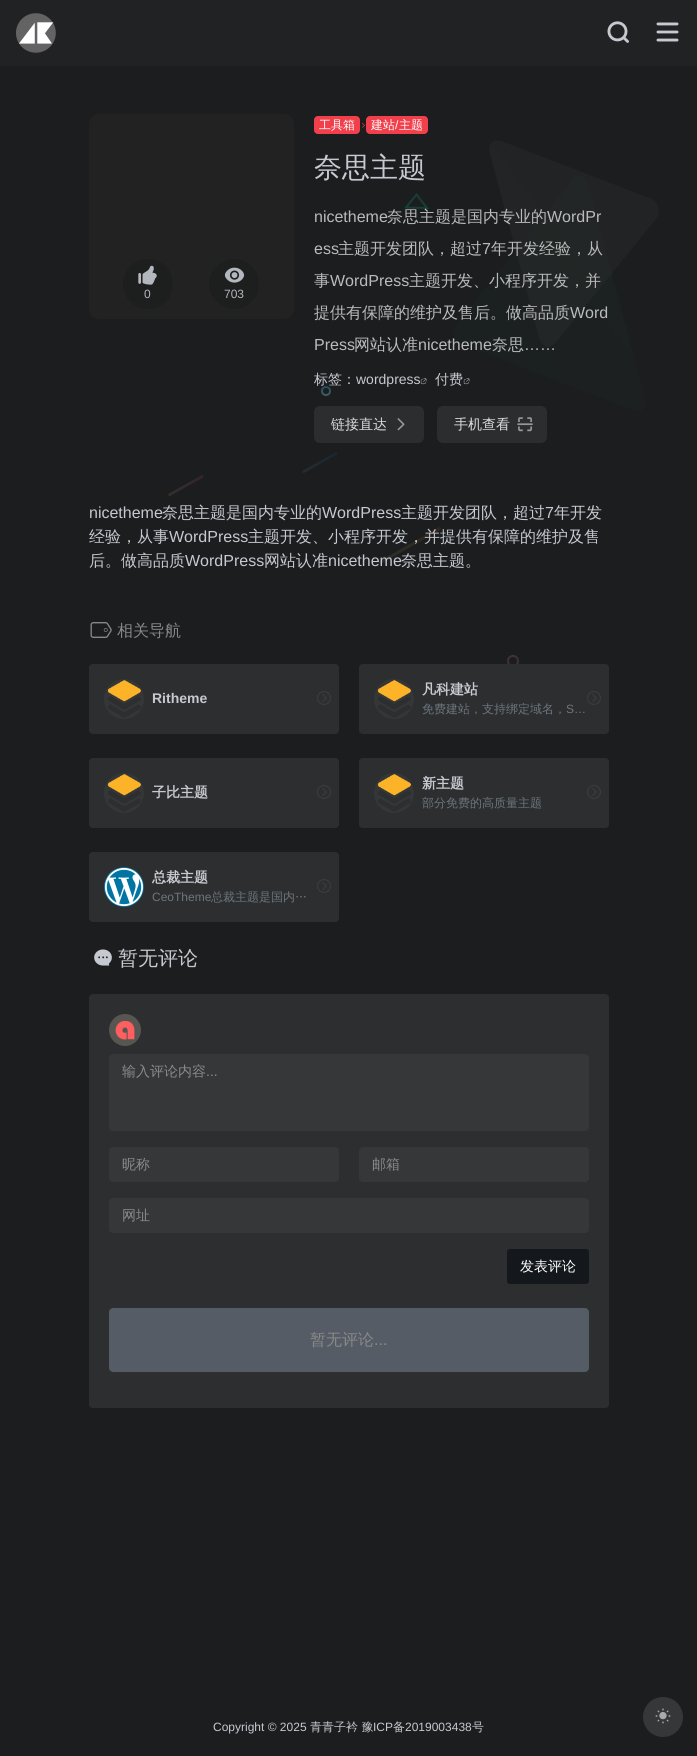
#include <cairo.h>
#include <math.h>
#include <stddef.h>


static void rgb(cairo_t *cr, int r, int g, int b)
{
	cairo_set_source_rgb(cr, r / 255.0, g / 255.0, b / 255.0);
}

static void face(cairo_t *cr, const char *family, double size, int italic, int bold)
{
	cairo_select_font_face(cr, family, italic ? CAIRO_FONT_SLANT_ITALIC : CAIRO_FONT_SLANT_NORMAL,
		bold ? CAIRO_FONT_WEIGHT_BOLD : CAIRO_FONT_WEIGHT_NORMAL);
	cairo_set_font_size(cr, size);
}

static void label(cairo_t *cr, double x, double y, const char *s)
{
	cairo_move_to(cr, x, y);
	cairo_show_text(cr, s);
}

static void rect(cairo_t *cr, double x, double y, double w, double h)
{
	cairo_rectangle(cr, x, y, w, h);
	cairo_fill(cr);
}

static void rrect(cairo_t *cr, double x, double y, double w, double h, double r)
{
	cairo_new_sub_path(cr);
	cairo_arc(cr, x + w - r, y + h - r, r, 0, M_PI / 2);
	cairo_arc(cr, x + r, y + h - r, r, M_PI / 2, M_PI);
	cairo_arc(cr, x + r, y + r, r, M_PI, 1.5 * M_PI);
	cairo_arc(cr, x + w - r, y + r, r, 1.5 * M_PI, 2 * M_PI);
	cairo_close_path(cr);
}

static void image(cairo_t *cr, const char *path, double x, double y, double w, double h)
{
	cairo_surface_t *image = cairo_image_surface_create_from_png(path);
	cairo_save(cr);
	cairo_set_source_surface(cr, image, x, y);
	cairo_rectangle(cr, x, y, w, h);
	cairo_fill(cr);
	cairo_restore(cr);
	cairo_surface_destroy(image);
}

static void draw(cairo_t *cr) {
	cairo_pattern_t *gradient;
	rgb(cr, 27, 29, 31);
	cairo_paint(cr);
	rgb(cr, 32, 34, 35);
	rect(cr, 0, 0, 697, 66);
	image(cr, "image0.png", 16, 13, 40, 40);
	image(cr, "image1.png", 607, 21, 22, 22);
	image(cr, "image2.png", 656, 22, 23, 20);
	rgb(cr, 241, 64, 75);
	rrect(cr, 314, 116, 46, 18, 4);
	cairo_fill(cr);
	face(cr, "WenQuanYi Zen Hei Medium", 12, 0, 0);
	rgb(cr, 255, 255, 255);
	label(cr, 319, 129, "工具箱");
	image(cr, "image3.png", 362, 123, 3, 5);
	rgb(cr, 241, 64, 75);
	rrect(cr, 366, 116, 62, 18, 4);
	cairo_fill(cr);
	rgb(cr, 255, 255, 255);
	label(cr, 371, 129, "建站");
	face(cr, "Liberation Sans", 12, 0, 0);
	label(cr, 395, 129, "/");
	face(cr, "WenQuanYi Zen Hei Medium", 12, 0, 0);
	label(cr, 399, 129, "主题");
	face(cr, "WenQuanYi Zen Hei Medium", 28, 0, 0);
	rgb(cr, 198, 201, 207);
	label(cr, 314, 177, "奈思主题");
	face(cr, "Liberation Sans", 16, 0, 0);
	rgb(cr, 187, 187, 187);
	label(cr, 314, 222, "nicetheme");
	gradient = cairo_pattern_create_linear(615, 140, 468, 249);
	cairo_pattern_add_color_stop_rgba(gradient, 0, 0.133, 0.137, 0.145, 1);
	cairo_pattern_add_color_stop_rgba(gradient, 1, 0.133, 0.141, 0.145, 1);
	cairo_set_source(cr, gradient);
	cairo_pattern_destroy(gradient);
	cairo_set_fill_rule(cr, CAIRO_FILL_RULE_EVEN_ODD);
	cairo_new_path(cr);
	cairo_move_to(cr, 539, 337);
	cairo_line_to(cr, 490, 154);
	cairo_curve_to(cr, 487, 143, 493, 138, 504, 142);
	cairo_line_to(cr, 649, 198);
	cairo_curve_to(cr, 659, 202, 662, 212, 655, 220);
	cairo_line_to(cr, 557, 341);
	cairo_curve_to(cr, 550, 350, 542, 348, 539, 337);
	cairo_close_path(cr);
	cairo_fill(cr);
	cairo_new_path(cr);
	cairo_move_to(cr, 427, 208);
	cairo_line_to(cr, 416.5, 194.5);
	cairo_line_to(cr, 406, 207.5);
	cairo_close_path(cr);
	gradient = cairo_pattern_create_linear(406, 196, 427, 207);
	cairo_pattern_add_color_stop_rgba(gradient, 0, 0.227, 0.29, 0.278, 1);
	cairo_pattern_add_color_stop_rgba(gradient, 0, 0.086, 0.247, 0.22, 1);
	cairo_set_source(cr, gradient);
	cairo_pattern_destroy(gradient);
	cairo_stroke(cr);
	gradient = cairo_pattern_create_linear(588, 176, 427, 312);
	cairo_pattern_add_color_stop_rgba(gradient, 0, 0.176, 0.239, 0.165, 0.11);
	cairo_pattern_add_color_stop_rgba(gradient, 1, 0.102, 0.22, 0.169, 0.11);
	cairo_set_source(cr, gradient);
	cairo_pattern_destroy(gradient);
	cairo_new_path(cr);
	cairo_move_to(cr, 588, 186);
	cairo_line_to(cr, 645, 397);
	cairo_curve_to(cr, 648, 408, 642, 413, 632, 410);
	cairo_line_to(cr, 464, 345);
	cairo_curve_to(cr, 453, 341, 451, 331, 458, 322);
	cairo_line_to(cr, 571, 182);
	cairo_curve_to(cr, 578, 173, 586, 175, 588, 186);
	cairo_close_path(cr);
	cairo_fill(cr);
	face(cr, "WenQuanYi Zen Hei Medium", 16, 0, 0);
	rgb(cr, 187, 187, 187);
	label(cr, 387, 222, "奈思主题是国内专业的");
	face(cr, "Liberation Sans", 16, 0, 0);
	label(cr, 547, 222, "WordPr");
	label(cr, 314, 254, "ess");
	face(cr, "WenQuanYi Zen Hei Medium", 16, 0, 0);
	label(cr, 338, 254, "主题开发团队，超过");
	face(cr, "Liberation Sans", 16, 0, 0);
	label(cr, 482, 254, "7");
	face(cr, "WenQuanYi Zen Hei Medium", 16, 0, 0);
	label(cr, 491, 254, "年开发经验，从");
	label(cr, 314, 286, "事");
	face(cr, "Liberation Sans", 16, 0, 0);
	label(cr, 330, 286, "WordPress");
	face(cr, "WenQuanYi Zen Hei Medium", 16, 0, 0);
	label(cr, 409, 286, "主题开发、小程序开发，并");
	label(cr, 314, 318, "提供有保障的维护及售后。做高品质");
	face(cr, "Liberation Sans", 16, 0, 0);
	label(cr, 570, 318, "Word");
	label(cr, 314, 350, "Press");
	face(cr, "WenQuanYi Zen Hei Medium", 16, 0, 0);
	label(cr, 354, 350, "网站认准");
	face(cr, "Liberation Sans", 16, 0, 0);
	label(cr, 418, 350, "nicetheme");
	face(cr, "WenQuanYi Zen Hei Medium", 16, 0, 0);
	label(cr, 492, 350, "奈思");
	face(cr, "Liberation Sans", 16, 0, 0);
	label(cr, 524, 350, "……");
	face(cr, "WenQuanYi Zen Hei Medium", 14, 0, 0);
	rgb(cr, 198, 201, 207);
	label(cr, 314, 384, "标签：");
	face(cr, "Liberation Sans", 14, 0, 0);
	label(cr, 356, 384, "wordpress");
	image(cr, "image4.png", 420, 378, 7, 7);
	face(cr, "WenQuanYi Zen Hei Medium", 14, 0, 0);
	label(cr, 435, 384, "付费");
	image(cr, "image4.png", 463, 378, 7, 7);
	rgb(cr, 44, 45, 47);
	rrect(cr, 314, 406, 110, 37, 6);
	cairo_fill(cr);
	rgb(cr, 221, 221, 221);
	label(cr, 331, 429, "链接直达");
	image(cr, "image5.png", 397, 418, 8, 13);
	rgb(cr, 44, 45, 47);
	rrect(cr, 437, 406, 110, 37, 6);
	cairo_fill(cr);
	rgb(cr, 221, 221, 221);
	label(cr, 454, 429, "手机查看");
	image(cr, "image6.png", 517, 417, 16, 15);
	cairo_arc(cr, 326, 391, 4, 0, 2 * M_PI);
	gradient = cairo_pattern_create_linear(326, 387, 326, 395);
	cairo_pattern_add_color_stop_rgba(gradient, 0, 0.141, 0.302, 0.384, 1);
	cairo_pattern_add_color_stop_rgba(gradient, 1, 0.267, 0.361, 0.384, 1);
	cairo_set_source(cr, gradient);
	cairo_pattern_destroy(gradient);
	cairo_stroke(cr);
	gradient = cairo_pattern_create_linear(303, 472, 337, 452);
	cairo_pattern_add_color_stop_rgba(gradient, 0, 0.153, 0.173, 0.184, 1);
	cairo_pattern_add_color_stop_rgba(gradient, 1, 0.098, 0.149, 0.184, 1);
	cairo_set_source(cr, gradient);
	cairo_pattern_destroy(gradient);
	cairo_new_path(cr);
	cairo_move_to(cr, 303, 470.5);
	cairo_line_to(cr, 336, 452);
	cairo_line_to(cr, 337, 452.5);
	cairo_curve_to(cr, 339, 454.5, 334.5, 456, 331.5, 457.5);
	cairo_line_to(cr, 304, 473);
	cairo_curve_to(cr, 302.5, 473.5, 302, 471, 303, 470.5);
	cairo_close_path(cr);
	cairo_fill(cr);
	gradient = cairo_pattern_create_linear(169, 496, 203, 476);
	cairo_pattern_add_color_stop_rgba(gradient, 0, 0.2, 0.188, 0.173, 1);
	cairo_pattern_add_color_stop_rgba(gradient, 1, 0.2, 0.149, 0.157, 1);
	cairo_set_source(cr, gradient);
	cairo_pattern_destroy(gradient);
	cairo_new_path(cr);
	cairo_move_to(cr, 169, 493.5);
	cairo_line_to(cr, 202, 475);
	cairo_line_to(cr, 203, 475.5);
	cairo_curve_to(cr, 205, 477.5, 200.5, 479, 197.5, 480.5);
	cairo_line_to(cr, 170, 496);
	cairo_curve_to(cr, 168.5, 496.5, 168, 494, 169, 493.5);
	cairo_close_path(cr);
	cairo_fill(cr);
	gradient = cairo_pattern_create_linear(380, 563, 440, 528);
	cairo_pattern_add_color_stop_rgba(gradient, 0, 0.184, 0.18, 0.161, 1);
	cairo_pattern_add_color_stop_rgba(gradient, 1, 0.184, 0.149, 0.11, 1);
	cairo_set_source(cr, gradient);
	cairo_pattern_destroy(gradient);
	cairo_new_path(cr);
	cairo_move_to(cr, 380, 561);
	cairo_line_to(cr, 439, 527);
	cairo_curve_to(cr, 440, 527, 441, 528, 441, 529);
	cairo_line_to(cr, 440, 530);
	cairo_line_to(cr, 381, 564);
	cairo_curve_to(cr, 380, 564, 379, 562, 380, 561);
	cairo_close_path(cr);
	cairo_fill(cr);
	cairo_arc(cr, 513, 661, 5, 0, 2 * M_PI);
	gradient = cairo_pattern_create_linear(513, 656, 513, 666);
	cairo_pattern_add_color_stop_rgba(gradient, 0, 0.239, 0.224, 0.145, 1);
	cairo_pattern_add_color_stop_rgba(gradient, 0, 0.235, 0.2, 0.196, 1);
	cairo_set_source(cr, gradient);
	cairo_pattern_destroy(gradient);
	cairo_stroke(cr);
	rgb(cr, 34, 34, 34);
	rrect(cr, 89, 114, 205, 205, 10);
	cairo_fill(cr);
	rgb(cr, 29, 30, 30);
	cairo_arc(cr, 148, 284, 25, 0, 2 * M_PI);
	cairo_fill(cr);
	image(cr, "image7.png", 138, 265, 19, 20);
	face(cr, "Liberation Sans", 12, 0, 0);
	rgb(cr, 178, 184, 190);
	label(cr, 144, 298, "0");
	rgb(cr, 29, 30, 30);
	cairo_new_path(cr);
	cairo_arc(cr, 234, 284, 25, 0, 2 * M_PI);
	cairo_fill(cr);
	image(cr, "image8.png", 224, 267, 21, 16);
	rgb(cr, 178, 184, 190);
	label(cr, 224, 298, "703");
	face(cr, "Liberation Sans", 16, 0, 0);
	rgb(cr, 198, 201, 207);
	label(cr, 89, 518, "nicetheme");
	face(cr, "WenQuanYi Zen Hei Medium", 16, 0, 0);
	label(cr, 162, 518, "奈思主题是国内专业的");
	face(cr, "Liberation Sans", 16, 0, 0);
	label(cr, 322, 518, "WordPress");
	face(cr, "WenQuanYi Zen Hei Medium", 16, 0, 0);
	label(cr, 401, 518, "主题开发团队，超过");
	face(cr, "Liberation Sans", 16, 0, 0);
	label(cr, 545, 518, "7");
	face(cr, "WenQuanYi Zen Hei Medium", 16, 0, 0);
	label(cr, 554, 518, "年开发");
	label(cr, 89, 542, "经验，从事");
	face(cr, "Liberation Sans", 16, 0, 0);
	label(cr, 169, 542, "WordPress");
	face(cr, "WenQuanYi Zen Hei Medium", 16, 0, 0);
	label(cr, 248, 542, "主题开发、小程序开发，并提供有保障的维护及售");
	label(cr, 89, 566, "后。做高品质");
	face(cr, "Liberation Sans", 16, 0, 0);
	label(cr, 185, 566, "WordPress");
	face(cr, "WenQuanYi Zen Hei Medium", 16, 0, 0);
	label(cr, 264, 566, "网站认准");
	face(cr, "Liberation Sans", 16, 0, 0);
	label(cr, 328, 566, "nicetheme");
	face(cr, "WenQuanYi Zen Hei Medium", 16, 0, 0);
	label(cr, 401, 566, "奈思主题。");
	image(cr, "image9.png", 90, 622, 22, 16);
	rgb(cr, 136, 136, 136);
	label(cr, 117, 636, "相关导航");
	rgb(cr, 44, 46, 47);
	rrect(cr, 89, 664, 250, 70, 4);
	cairo_fill(cr);
	rgb(cr, 52, 54, 55);
	cairo_arc(cr, 124, 699, 20, 0, 2 * M_PI);
	cairo_fill(cr);
	image(cr, "image10.png", 107, 680, 34, 38);
	face(cr, "Liberation Sans", 14, 0, 1);
	rgb(cr, 198, 201, 207);
	label(cr, 152, 703, "Ritheme");
	image(cr, "image11.png", 317, 691, 14, 14);
	rgb(cr, 44, 46, 47);
	rrect(cr, 359, 664, 250, 70, 4);
	cairo_fill(cr);
	rgb(cr, 52, 54, 55);
	cairo_arc(cr, 394, 699, 20, 0, 2 * M_PI);
	cairo_fill(cr);
	image(cr, "image12.png", 377, 680, 34, 38);
	face(cr, "WenQuanYi Zen Hei", 14, 0, 1);
	rgb(cr, 198, 201, 207);
	label(cr, 422, 694, "凡科建站");
	face(cr, "WenQuanYi Zen Hei Medium", 12, 0, 0);
	rgb(cr, 108, 117, 125);
	label(cr, 422, 713, "免费建站，支持绑定域名，");
	face(cr, "Liberation Sans", 12, 0, 0);
	label(cr, 566, 713, "S…");
	image(cr, "image11.png", 587, 691, 14, 14);
	rgb(cr, 44, 46, 47);
	rrect(cr, 89, 758, 250, 70, 4);
	cairo_fill(cr);
	rgb(cr, 52, 54, 55);
	cairo_arc(cr, 124, 793, 20, 0, 2 * M_PI);
	cairo_fill(cr);
	image(cr, "image10.png", 107, 774, 34, 38);
	face(cr, "WenQuanYi Zen Hei", 14, 0, 1);
	rgb(cr, 198, 201, 207);
	label(cr, 152, 797, "子比主题");
	image(cr, "image11.png", 317, 785, 14, 14);
	rgb(cr, 44, 46, 47);
	rrect(cr, 359, 758, 250, 70, 4);
	cairo_fill(cr);
	rgb(cr, 52, 54, 55);
	cairo_arc(cr, 394, 793, 20, 0, 2 * M_PI);
	cairo_fill(cr);
	image(cr, "image12.png", 377, 774, 34, 38);
	rgb(cr, 198, 201, 207);
	label(cr, 422, 788, "新主题");
	cairo_save(cr);
	cairo_set_fill_rule(cr, CAIRO_FILL_RULE_WINDING);
	cairo_rectangle(cr, 422, 794, 167, 18);
	cairo_clip(cr);
	face(cr, "WenQuanYi Zen Hei Medium", 12, 0, 0);
	rgb(cr, 108, 117, 125);
	label(cr, 422, 807, "部分免费的高质量主题");
	cairo_restore(cr);
	image(cr, "image11.png", 587, 785, 14, 14);
	rgb(cr, 44, 46, 47);
	rrect(cr, 89, 852, 250, 70, 4);
	cairo_fill(cr);
	rgb(cr, 52, 54, 55);
	cairo_arc(cr, 124, 887, 20, 0, 2 * M_PI);
	cairo_fill(cr);
	image(cr, "image13.png", 104, 867, 40, 40);
	rgb(cr, 198, 201, 207);
	label(cr, 152, 882, "总裁主题");
	face(cr, "Liberation Sans", 12, 0, 0);
	rgb(cr, 108, 117, 125);
	label(cr, 152, 901, "CeoTheme");
	face(cr, "WenQuanYi Zen Hei Medium", 12, 0, 0);
	label(cr, 211, 901, "总裁主题是国内…");
	image(cr, "image11.png", 317, 879, 14, 14);
	image(cr, "image14.png", 94, 949, 18, 17);
	face(cr, "WenQuanYi Zen Hei Medium", 20, 0, 0);
	rgb(cr, 198, 201, 207);
	label(cr, 118, 965, "暂无评论");
	rgb(cr, 44, 46, 47);
	rrect(cr, 89, 994, 520, 414, 4);
	cairo_fill(cr);
	image(cr, "image15.png", 109, 1014, 32, 32);
	rgb(cr, 54, 55, 56);
	rrect(cr, 109, 1054, 480, 77, 4);
	cairo_fill(cr);
	face(cr, "WenQuanYi Zen Hei Medium", 14, 0, 0);
	rgb(cr, 136, 138, 143);
	label(cr, 122, 1076, "输入评论内容");
	face(cr, "Liberation Sans", 14, 0, 0);
	label(cr, 206, 1076, "...");
	rgb(cr, 54, 55, 56);
	rrect(cr, 109, 1147, 230, 35, 4);
	cairo_fill(cr);
	face(cr, "WenQuanYi Zen Hei Medium", 14, 0, 0);
	rgb(cr, 136, 138, 143);
	label(cr, 122, 1169, "昵称");
	rgb(cr, 54, 55, 56);
	rrect(cr, 359, 1147, 230, 35, 4);
	cairo_fill(cr);
	rgb(cr, 136, 138, 143);
	label(cr, 372, 1169, "邮箱");
	rgb(cr, 54, 55, 56);
	rrect(cr, 109, 1198, 480, 35, 4);
	cairo_fill(cr);
	rgb(cr, 136, 138, 143);
	label(cr, 122, 1220, "网址");
	rgb(cr, 20, 23, 27);
	rrect(cr, 507.5, 1249.5, 81, 34, 2.5);
	cairo_fill_preserve(cr);
	cairo_set_line_width(cr, 1);
	cairo_stroke(cr);
	rgb(cr, 255, 255, 255);
	label(cr, 520, 1271, "发表评论");
	rgb(cr, 72, 81, 93);
	rrect(cr, 109, 1308, 480, 64, 4);
	cairo_fill(cr);
	cairo_set_source_rgba(cr, 0.533, 0.533, 0.533, 0.2);
	rrect(cr, 109, 1308, 480, 64, 5);
	cairo_fill(cr);
	face(cr, "WenQuanYi Zen Hei Medium", 16, 0, 0);
	rgb(cr, 136, 136, 136);
	label(cr, 310, 1345, "暂无评论");
	face(cr, "Liberation Sans", 16, 0, 0);
	label(cr, 374, 1345, "...");
	face(cr, "Liberation Sans", 12, 0, 0);
	rgb(cr, 198, 201, 207);
	label(cr, 213, 1731, "Copyright © 2025");
	face(cr, "WenQuanYi Zen Hei Medium", 12, 0, 0);
	label(cr, 310, 1731, "青青子衿 豫");
	face(cr, "Liberation Sans", 12, 0, 0);
	label(cr, 373, 1731, "ICP");
	face(cr, "WenQuanYi Zen Hei Medium", 12, 0, 0);
	label(cr, 393, 1731, "备");
	face(cr, "Liberation Sans", 12, 0, 0);
	label(cr, 405, 1731, "2019003438");
	face(cr, "WenQuanYi Zen Hei Medium", 12, 0, 0);
	label(cr, 472, 1731, "号");
	rgb(cr, 54, 55, 56);
	cairo_new_path(cr);
	cairo_arc(cr, 663, 1717, 20, 0, 2 * M_PI);
	cairo_fill(cr);
	image(cr, "image16.png", 655, 1708, 16, 16);
}

int main(void) {
	cairo_surface_t *surface = cairo_image_surface_create(CAIRO_FORMAT_RGB24, 697, 1756);
	cairo_t *cr = cairo_create(surface);
	cairo_font_options_t *options = cairo_font_options_create();
	cairo_font_options_set_hint_metrics(options, CAIRO_HINT_METRICS_OFF);
	cairo_font_options_set_hint_style(options, CAIRO_HINT_STYLE_NONE);
	cairo_set_font_options(cr, options);
	cairo_set_miter_limit(cr, 4);
	draw(cr);
	cairo_surface_write_to_png(surface, "render.png");
	cairo_font_options_destroy(options);
	cairo_destroy(cr);
	cairo_surface_destroy(surface);
	return 0;
}
